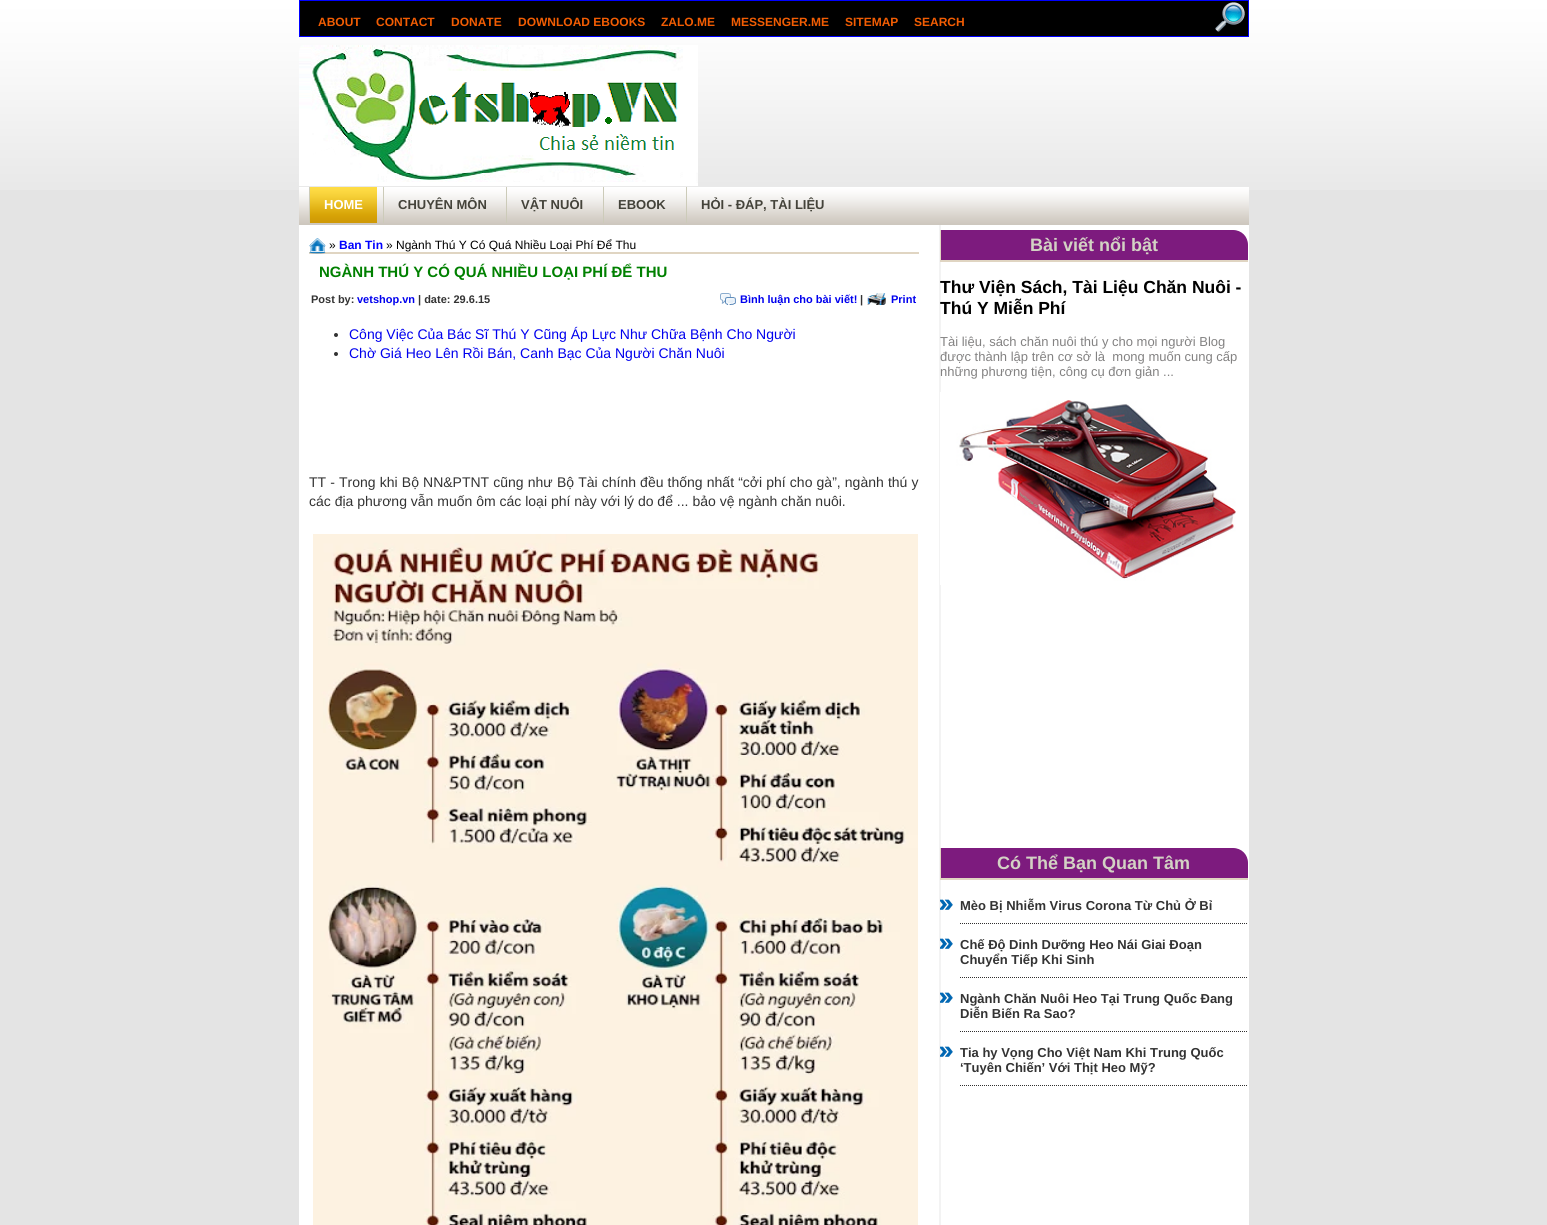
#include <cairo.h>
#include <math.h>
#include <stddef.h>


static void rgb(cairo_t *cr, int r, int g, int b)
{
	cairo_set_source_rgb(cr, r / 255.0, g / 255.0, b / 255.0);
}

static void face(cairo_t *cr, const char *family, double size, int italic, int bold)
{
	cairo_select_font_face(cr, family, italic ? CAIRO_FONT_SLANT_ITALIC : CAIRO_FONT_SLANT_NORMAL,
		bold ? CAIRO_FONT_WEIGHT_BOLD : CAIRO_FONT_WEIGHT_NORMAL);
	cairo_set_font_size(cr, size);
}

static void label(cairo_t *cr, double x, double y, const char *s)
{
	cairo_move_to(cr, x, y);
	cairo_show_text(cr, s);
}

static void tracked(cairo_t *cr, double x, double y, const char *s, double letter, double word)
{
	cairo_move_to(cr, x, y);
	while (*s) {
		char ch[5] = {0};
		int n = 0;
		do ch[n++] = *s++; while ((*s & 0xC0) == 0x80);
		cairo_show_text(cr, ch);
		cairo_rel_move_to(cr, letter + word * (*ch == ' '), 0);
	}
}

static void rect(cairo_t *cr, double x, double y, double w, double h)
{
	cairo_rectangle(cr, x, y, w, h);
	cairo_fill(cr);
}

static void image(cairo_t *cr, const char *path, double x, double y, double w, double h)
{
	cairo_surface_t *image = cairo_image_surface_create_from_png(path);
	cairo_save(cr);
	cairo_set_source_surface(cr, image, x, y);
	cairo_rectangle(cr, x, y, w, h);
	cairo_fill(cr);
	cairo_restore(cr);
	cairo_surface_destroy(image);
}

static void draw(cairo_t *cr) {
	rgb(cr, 228, 228, 228);
	cairo_paint(cr);
	image(cr, "image0.png", 0, 0, 1547, 190);
	rgb(cr, 0, 0, 0);
	cairo_rectangle(cr, 299.5, 0.5, 949, 36);
	cairo_fill_preserve(cr);
	rgb(cr, 0, 0, 255);
	cairo_set_line_width(cr, 1);
	cairo_stroke(cr);
	face(cr, "Liberation Sans", 12, 0, 1);
	rgb(cr, 242, 93, 3);
	label(cr, 318, 26, "ABOUT");
	label(cr, 376, 26, "CONTACT");
	label(cr, 451, 26, "DONATE");
	label(cr, 518, 26, "DOWNLOAD EBOOKS");
	label(cr, 661, 26, "ZALO.ME");
	label(cr, 731, 26, "MESSENGER.ME");
	label(cr, 845, 26, "SITEMAP");
	label(cr, 914, 26, "SEARCH");
	image(cr, "image1.png", 1215, 2, 30, 30);
	image(cr, "image2.png", 299, 45, 399, 141);
	rgb(cr, 255, 255, 255);
	rect(cr, 299, 225, 950, 1000);
	rgb(cr, 243, 243, 243);
	rect(cr, 939, 223, 2, 1002);
	image(cr, "image3.png", 299, 187, 950, 38);
	image(cr, "image4.png", 310, 187, 67, 36);
	rgb(cr, 204, 203, 185);
	rect(cr, 309, 187, 1, 36);
	face(cr, "Liberation Sans", 13, 0, 1);
	rgb(cr, 255, 255, 255);
	label(cr, 324, 209, "HOME");
	rgb(cr, 204, 203, 185);
	rect(cr, 383, 187, 1, 36);
	rgb(cr, 68, 67, 58);
	label(cr, 398, 209, "CHUYÊN MÔN");
	rgb(cr, 204, 203, 185);
	rect(cr, 506, 187, 1, 36);
	rgb(cr, 68, 67, 58);
	label(cr, 521, 209, "VẬT NUÔI");
	rgb(cr, 204, 203, 185);
	rect(cr, 603, 187, 1, 36);
	rgb(cr, 68, 67, 58);
	label(cr, 618, 209, "EBOOK");
	rgb(cr, 204, 203, 185);
	rect(cr, 686, 187, 1, 36);
	rgb(cr, 68, 67, 58);
	label(cr, 701, 209, "HỎI - ĐÁP, TÀI LIỆU");
	rgb(cr, 224, 213, 194);
	rect(cr, 309, 252, 610, 2);
	image(cr, "image5.png", 309, 238, 17, 16);
	face(cr, "Liberation Sans", 12, 0, 0);
	rgb(cr, 0, 0, 0);
	label(cr, 329, 249, "»");
	face(cr, "Liberation Sans", 12, 0, 1);
	rgb(cr, 0, 0, 255);
	label(cr, 339, 249, "Ban Tin");
	face(cr, "Liberation Sans", 12, 0, 0);
	rgb(cr, 0, 0, 0);
	label(cr, 386, 249, "» Ngành Thú Y Có Quá Nhiều Loại Phí Để Thu");
	face(cr, "Liberation Sans", 15, 0, 1);
	rgb(cr, 0, 128, 0);
	label(cr, 319, 277, "NGÀNH THÚ Y CÓ QUÁ NHIỀU LOẠI PHÍ ĐỂ THU");
	face(cr, "Liberation Sans", 11, 0, 1);
	rgb(cr, 51, 51, 51);
	label(cr, 311, 303, "Post by:");
	rgb(cr, 0, 0, 238);
	label(cr, 357, 303, "vetshop.vn");
	rgb(cr, 51, 51, 51);
	label(cr, 418, 303, "| date: 29.6.15");
	image(cr, "image6.png", 720, 293, 16, 12);
	rgb(cr, 0, 0, 238);
	label(cr, 740, 303, "Bình luận cho bài viết!");
	rgb(cr, 51, 51, 51);
	label(cr, 860, 303, "|");
	image(cr, "image7.png", 867, 293, 19, 12);
	rgb(cr, 0, 0, 238);
	label(cr, 891, 303, "Print");
	rgb(cr, 51, 51, 51);
	cairo_new_path(cr);
	cairo_arc(cr, 336, 335, 2, 0, 2 * M_PI);
	cairo_fill(cr);
	face(cr, "Liberation Sans", 14, 0, 0);
	rgb(cr, 0, 0, 238);
	label(cr, 349, 339, "Công Việc Của Bác Sĩ Thú Y Cũng Áp Lực Như Chữa Bệnh Cho Người");
	rgb(cr, 51, 51, 51);
	cairo_new_path(cr);
	cairo_arc(cr, 336, 354, 2, 0, 2 * M_PI);
	cairo_fill(cr);
	rgb(cr, 0, 0, 238);
	label(cr, 349, 358, "Chờ Giá Heo Lên Rồi Bán, Canh Bạc Của Người Chăn Nuôi");
	rgb(cr, 51, 51, 51);
	tracked(cr, 309, 487, "TT - Trong khi Bộ NN&PTNT cũng như Bộ Tài chính đều thống nhất “cởi phí cho gà”, ngành thú y", 0, 0.25);
	label(cr, 309, 506, "các địa phương vẫn muốn ôm các loại phí này với lý do để ... bảo vệ ngành chăn nuôi.");
	image(cr, "image8.png", 313, 534, 605, 691);
	rgb(cr, 125, 27, 126);
	cairo_new_path(cr);
	cairo_move_to(cr, 940, 230);
	cairo_line_to(cr, 1233, 230);
	cairo_curve_to(cr, 1241.5, 230, 1248, 236.5, 1248, 245);
	cairo_line_to(cr, 1248, 262);
	cairo_line_to(cr, 940, 262);
	cairo_close_path(cr);
	cairo_fill(cr);
	rgb(cr, 224, 213, 194);
	rect(cr, 940, 260, 308, 2);
	rect(cr, 940, 230, 1, 32);
	face(cr, "Liberation Sans", 18, 0, 1);
	rgb(cr, 211, 210, 196);
	label(cr, 1030, 251, "Bài viết nổi bật");
	face(cr, "Liberation Sans", 17.5, 0, 1);
	rgb(cr, 0, 0, 0);
	label(cr, 940, 293, "Thư Viện Sách, Tài Liệu Chăn Nuôi -");
	label(cr, 940, 314, "Thú Y Miễn Phí");
	face(cr, "Liberation Sans", 13, 0, 0);
	rgb(cr, 131, 130, 130);
	label(cr, 940, 346, "Tài liệu, sách chăn nuôi thú y cho mọi người Blog");
	label(cr, 940, 361, "được thành lập trên cơ sở là  mong muốn cung cấp");
	label(cr, 940, 376, "những phương tiện, công cụ đơn giản ...");
	image(cr, "image9.png", 940, 392, 296, 193);
	rgb(cr, 125, 27, 126);
	cairo_new_path(cr);
	cairo_move_to(cr, 940, 848);
	cairo_line_to(cr, 1233, 848);
	cairo_curve_to(cr, 1241.5, 848, 1248, 854.5, 1248, 863);
	cairo_line_to(cr, 1248, 880);
	cairo_line_to(cr, 940, 880);
	cairo_close_path(cr);
	cairo_fill(cr);
	rgb(cr, 224, 213, 194);
	rect(cr, 940, 878, 308, 2);
	rect(cr, 940, 848, 1, 32);
	face(cr, "Liberation Sans", 18, 0, 1);
	rgb(cr, 211, 210, 196);
	label(cr, 997, 869, "Có Thể Bạn Quan Tâm");
	cairo_new_path(cr);
	cairo_move_to(cr, 960, 923.5);
	cairo_line_to(cr, 1248, 923.5);
	rgb(cr, 48, 47, 47);
	cairo_set_dash(cr, (double[]){1, 1}, 2, 0);
	cairo_stroke(cr);
	image(cr, "image10.png", 940, 899, 13, 11);
	face(cr, "Liberation Sans", 13, 0, 1);
	rgb(cr, 51, 51, 51);
	label(cr, 960, 910, "Mèo Bị Nhiễm Virus Corona Từ Chủ Ở Bỉ");
	cairo_new_path(cr);
	cairo_move_to(cr, 960, 977.5);
	cairo_line_to(cr, 1248, 977.5);
	rgb(cr, 48, 47, 47);
	cairo_stroke(cr);
	image(cr, "image10.png", 940, 938, 13, 11);
	rgb(cr, 51, 51, 51);
	label(cr, 960, 949, "Chế Độ Dinh Dưỡng Heo Nái Giai Đoạn");
	label(cr, 960, 964, "Chuyển Tiếp Khi Sinh");
	cairo_new_path(cr);
	cairo_move_to(cr, 960, 1031.5);
	cairo_line_to(cr, 1248, 1031.5);
	rgb(cr, 48, 47, 47);
	cairo_stroke(cr);
	image(cr, "image10.png", 940, 992, 13, 11);
	rgb(cr, 51, 51, 51);
	label(cr, 960, 1003, "Ngành Chăn Nuôi Heo Tại Trung Quốc Đang");
	label(cr, 960, 1018, "Diễn Biến Ra Sao?");
	cairo_new_path(cr);
	cairo_move_to(cr, 960, 1085.5);
	cairo_line_to(cr, 1248, 1085.5);
	rgb(cr, 48, 47, 47);
	cairo_stroke(cr);
	image(cr, "image10.png", 940, 1046, 13, 11);
	rgb(cr, 51, 51, 51);
	label(cr, 960, 1057, "Tia hy Vọng Cho Việt Nam Khi Trung Quốc");
	label(cr, 960, 1072, "‘Tuyên Chiến’ Với Thịt Heo Mỹ?");
}

int main(void) {
	cairo_surface_t *surface = cairo_image_surface_create(CAIRO_FORMAT_RGB24, 1547, 1225);
	cairo_t *cr = cairo_create(surface);
	cairo_font_options_t *options = cairo_font_options_create();
	cairo_font_options_set_hint_metrics(options, CAIRO_HINT_METRICS_OFF);
	cairo_font_options_set_hint_style(options, CAIRO_HINT_STYLE_NONE);
	cairo_set_font_options(cr, options);
	cairo_set_miter_limit(cr, 4);
	draw(cr);
	cairo_surface_write_to_png(surface, "render.png");
	cairo_font_options_destroy(options);
	cairo_destroy(cr);
	cairo_surface_destroy(surface);
	return 0;
}
